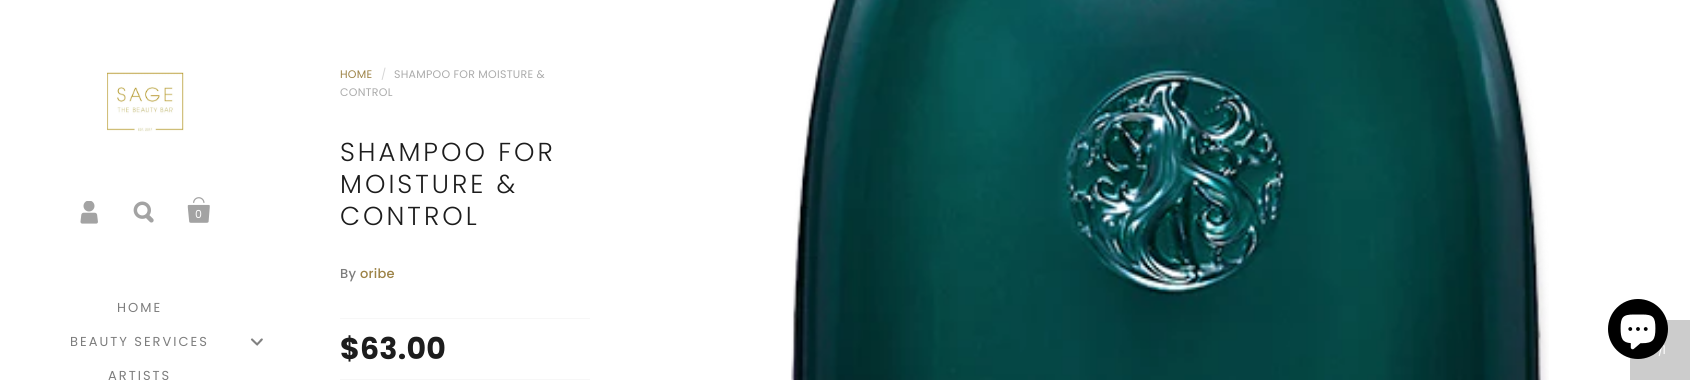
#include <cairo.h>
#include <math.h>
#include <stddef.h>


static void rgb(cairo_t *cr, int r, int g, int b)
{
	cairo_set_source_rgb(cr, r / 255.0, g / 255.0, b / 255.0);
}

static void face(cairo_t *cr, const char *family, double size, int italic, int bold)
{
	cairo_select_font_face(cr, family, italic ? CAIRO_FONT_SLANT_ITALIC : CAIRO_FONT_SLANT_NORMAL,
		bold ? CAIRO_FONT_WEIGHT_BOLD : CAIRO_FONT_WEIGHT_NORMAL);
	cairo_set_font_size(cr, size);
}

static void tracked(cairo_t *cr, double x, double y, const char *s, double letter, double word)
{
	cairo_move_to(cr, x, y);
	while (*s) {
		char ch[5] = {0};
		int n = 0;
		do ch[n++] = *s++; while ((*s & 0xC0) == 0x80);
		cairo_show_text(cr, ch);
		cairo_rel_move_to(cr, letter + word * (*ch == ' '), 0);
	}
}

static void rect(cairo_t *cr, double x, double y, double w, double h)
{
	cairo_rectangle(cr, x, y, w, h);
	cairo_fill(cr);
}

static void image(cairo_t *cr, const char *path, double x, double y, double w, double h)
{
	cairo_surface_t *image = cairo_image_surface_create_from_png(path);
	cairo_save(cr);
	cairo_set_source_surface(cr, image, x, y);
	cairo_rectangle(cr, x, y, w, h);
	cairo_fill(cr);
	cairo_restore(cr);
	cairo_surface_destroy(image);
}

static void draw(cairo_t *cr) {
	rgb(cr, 255, 255, 255);
	cairo_paint(cr);
	image(cr, "image0.png", 107, 72, 77, 60);
	image(cr, "image1.png", 80, 201, 18, 23);
	image(cr, "image2.png", 133, 201, 21, 22);
	image(cr, "image3.png", 187, 197, 23, 26);
	face(cr, "Poppins", 11, 0, 0);
	rgb(cr, 255, 255, 255);
	tracked(cr, 195, 218, "0", 0.25, 0);
	face(cr, "Poppins", 13, 0, 0);
	rgb(cr, 125, 125, 125);
	tracked(cr, 117, 312, "HOME", 2, 0);
	tracked(cr, 70, 346, "BEAUTY SERVICES", 2, 0);
	rgb(cr, 129, 129, 129);
	cairo_new_path(cr);
	cairo_move_to(cr, 252.5, 338.5);
	cairo_line_to(cr, 255, 341);
	cairo_curve_to(cr, 256, 342, 258, 343.5, 258, 344.5);
	cairo_curve_to(cr, 257.5, 347.5, 253.5, 342, 253, 342);
	cairo_line_to(cr, 251, 340);
	cairo_curve_to(cr, 250.5, 339, 252, 338, 252.5, 338.5);
	cairo_close_path(cr);
	cairo_fill(cr);
	cairo_new_path(cr);
	cairo_move_to(cr, 256.5, 343.5);
	cairo_line_to(cr, 259, 341);
	cairo_curve_to(cr, 259.5, 340.5, 261, 338, 262, 338.5);
	cairo_curve_to(cr, 265, 339, 259.5, 343, 259.5, 343.5);
	cairo_line_to(cr, 257.5, 345.5);
	cairo_curve_to(cr, 256.5, 345.5, 255.5, 344.5, 256.5, 343.5);
	cairo_close_path(cr);
	cairo_fill(cr);
	rgb(cr, 125, 125, 125);
	tracked(cr, 108, 380, "ARTISTS", 2, 0);
	face(cr, "Poppins", 11, 0, 0);
	rgb(cr, 157, 131, 71);
	tracked(cr, 340, 78, "HOME", 0.25, 0);
	rgb(cr, 213, 213, 213);
	tracked(cr, 381, 78, "/", 0.25, 0);
	rgb(cr, 171, 171, 171);
	tracked(cr, 394, 78, "SHAMPOO FOR MOISTURE &", 0.25, 0);
	tracked(cr, 340, 96, "CONTROL", 0.25, 0);
	face(cr, "Poppins Light", 26, 0, 0);
	rgb(cr, 29, 29, 29);
	tracked(cr, 340, 161, "SHAMPOO FOR", 3, 0);
	tracked(cr, 340, 193, "MOISTURE &", 3, 0);
	tracked(cr, 340, 225, "CONTROL", 3, 0);
	face(cr, "Poppins Medium", 13, 0, 0);
	rgb(cr, 125, 125, 125);
	tracked(cr, 340, 278, "By", 0.25, 0);
	rgb(cr, 157, 131, 71);
	tracked(cr, 360, 278, "oribe", 0.25, 0);
	rgb(cr, 247, 247, 247);
	rect(cr, 340, 318, 250, 1);
	rect(cr, 340, 379, 250, 1);
	face(cr, "Poppins", 30, 0, 1);
	rgb(cr, 29, 29, 29);
	tracked(cr, 340, 359, "$63.00", 0.25, 0);
	image(cr, "image4.png", 791, 0, 758, 380);
	rgb(cr, 204, 204, 204);
	rect(cr, 1630, 320, 60, 60);
	face(cr, "Poppins", 12, 0, 0);
	rgb(cr, 255, 255, 255);
	tracked(cr, 1658, 354, "/", -2, 0);
	tracked(cr, 1662, 354, "1", 0.25, 0);
	rgb(cr, 0, 0, 0);
	cairo_new_path(cr);
	cairo_arc(cr, 1638, 329, 30, 0, 2 * M_PI);
	cairo_fill(cr);
	image(cr, "image5.png", 1620, 314, 36, 36);
}

int main(void) {
	cairo_surface_t *surface = cairo_image_surface_create(CAIRO_FORMAT_RGB24, 1690, 380);
	cairo_t *cr = cairo_create(surface);
	cairo_font_options_t *options = cairo_font_options_create();
	cairo_font_options_set_hint_metrics(options, CAIRO_HINT_METRICS_OFF);
	cairo_font_options_set_hint_style(options, CAIRO_HINT_STYLE_NONE);
	cairo_set_font_options(cr, options);
	cairo_set_miter_limit(cr, 4);
	draw(cr);
	cairo_surface_write_to_png(surface, "render.png");
	cairo_font_options_destroy(options);
	cairo_destroy(cr);
	cairo_surface_destroy(surface);
	return 0;
}
